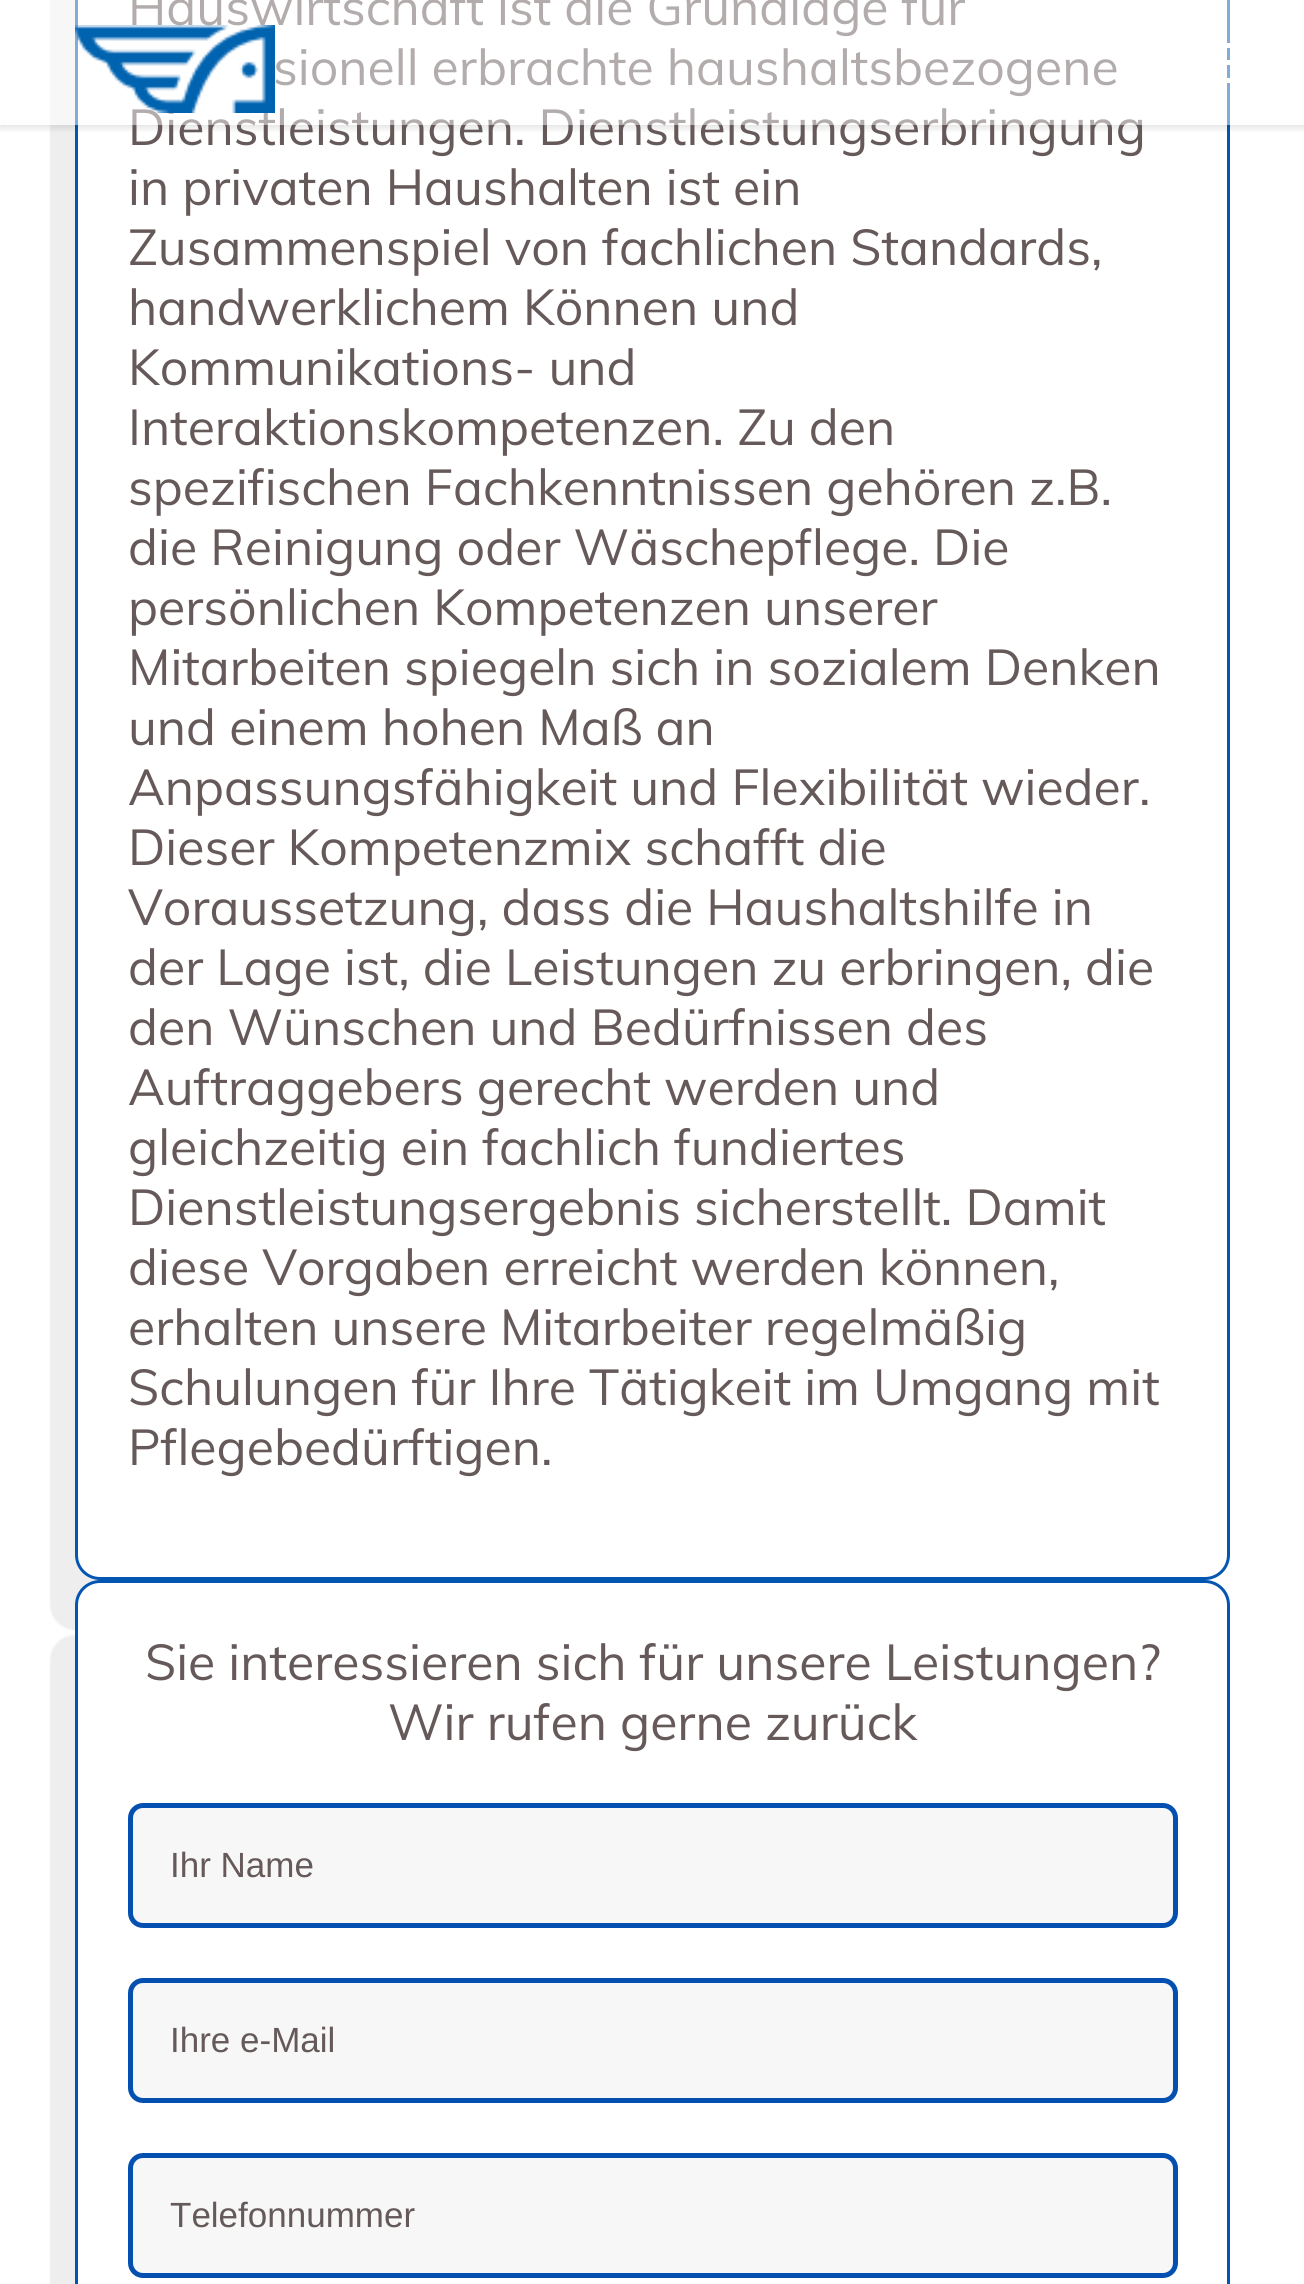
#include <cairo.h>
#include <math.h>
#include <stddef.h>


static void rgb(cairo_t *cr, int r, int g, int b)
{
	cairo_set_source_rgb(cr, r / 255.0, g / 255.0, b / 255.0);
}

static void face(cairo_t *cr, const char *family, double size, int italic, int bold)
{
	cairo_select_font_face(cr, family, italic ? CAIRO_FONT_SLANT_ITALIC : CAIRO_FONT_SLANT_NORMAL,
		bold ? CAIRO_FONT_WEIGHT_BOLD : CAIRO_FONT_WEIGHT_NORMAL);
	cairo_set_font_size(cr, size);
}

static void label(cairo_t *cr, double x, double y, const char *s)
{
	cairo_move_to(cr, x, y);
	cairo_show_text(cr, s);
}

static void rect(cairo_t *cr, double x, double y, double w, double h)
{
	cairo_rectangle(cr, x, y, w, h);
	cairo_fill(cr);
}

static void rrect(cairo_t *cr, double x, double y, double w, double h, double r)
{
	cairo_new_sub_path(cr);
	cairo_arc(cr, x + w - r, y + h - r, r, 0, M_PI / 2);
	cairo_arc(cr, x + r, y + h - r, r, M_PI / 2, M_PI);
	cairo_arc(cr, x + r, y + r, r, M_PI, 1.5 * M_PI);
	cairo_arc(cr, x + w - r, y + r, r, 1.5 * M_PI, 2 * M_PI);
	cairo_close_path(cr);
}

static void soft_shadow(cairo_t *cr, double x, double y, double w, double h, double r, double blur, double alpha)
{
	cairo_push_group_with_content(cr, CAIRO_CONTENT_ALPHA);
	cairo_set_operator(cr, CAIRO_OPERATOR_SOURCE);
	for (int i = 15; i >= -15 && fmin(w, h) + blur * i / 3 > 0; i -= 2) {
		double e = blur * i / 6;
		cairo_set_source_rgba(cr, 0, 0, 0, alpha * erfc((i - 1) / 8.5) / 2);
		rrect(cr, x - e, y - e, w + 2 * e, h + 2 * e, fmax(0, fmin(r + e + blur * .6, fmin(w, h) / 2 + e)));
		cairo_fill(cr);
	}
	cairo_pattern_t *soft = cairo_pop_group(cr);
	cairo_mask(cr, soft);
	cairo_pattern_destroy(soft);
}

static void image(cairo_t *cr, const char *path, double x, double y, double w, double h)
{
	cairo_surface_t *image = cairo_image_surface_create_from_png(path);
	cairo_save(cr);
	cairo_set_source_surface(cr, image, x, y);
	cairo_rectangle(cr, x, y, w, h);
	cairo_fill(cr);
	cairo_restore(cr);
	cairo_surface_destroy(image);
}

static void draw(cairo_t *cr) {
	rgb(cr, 255, 255, 255);
	cairo_paint(cr);
	cairo_save(cr);
	cairo_set_fill_rule(cr, CAIRO_FILL_RULE_EVEN_ODD);
	cairo_new_path(cr);
	cairo_move_to(cr, 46, 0);
	cairo_line_to(cr, 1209, 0);
	cairo_line_to(cr, 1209, 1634);
	cairo_line_to(cr, 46, 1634);
	cairo_close_path(cr);
	cairo_move_to(cr, 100, -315);
	cairo_line_to(cr, 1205, -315);
	cairo_curve_to(cr, 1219, -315, 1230, -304, 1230, -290);
	cairo_line_to(cr, 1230, 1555);
	cairo_curve_to(cr, 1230, 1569, 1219, 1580, 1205, 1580);
	cairo_line_to(cr, 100, 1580);
	cairo_curve_to(cr, 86, 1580, 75, 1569, 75, 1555);
	cairo_line_to(cr, 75, -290);
	cairo_curve_to(cr, 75, -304, 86, -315, 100, -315);
	cairo_close_path(cr);
	cairo_clip(cr);
	rgb(cr, 0, 0, 0);
	soft_shadow(cr, 50, -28, 1155, 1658, 25, 1, 0.07);
	cairo_restore(cr);
	rrect(cr, 76.5, -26.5, 1152, 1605, 23.5);
	rgb(cr, 4, 87, 177);
	cairo_set_line_width(cr, 3);
	cairo_stroke(cr);
	cairo_save(cr);
	cairo_rectangle(cr, 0, 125, 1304, 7);
	cairo_clip(cr);
	rgb(cr, 0, 0, 0);
	soft_shadow(cr, 0, 3, 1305, 125, 0, 4, 0.12);
	cairo_restore(cr);
	face(cr, "Muli", 50, 0, 0);
	rgb(cr, 102, 89, 89);
	label(cr, 128, 25, "Hauswirtschaft ist die Grundlage für");
	label(cr, 273, 85, "sionell erbrachte haushaltsbezogene");
	label(cr, 128, 145, "Dienstleistungen. Dienstleistungserbringung");
	cairo_set_source_rgba(cr, 1, 1, 1, 0.5);
	rect(cr, 49, 0, 1181, 125);
	image(cr, "image0.png", 75, 25, 200, 88);
	rgb(cr, 255, 255, 255);
	rect(cr, 1227, 43, 3, 5);
	rect(cr, 1227, 60, 3, 5);
	rect(cr, 1227, 78, 3, 5);
	rgb(cr, 102, 89, 89);
	label(cr, 128, 205, "in privaten Haushalten ist ein");
	label(cr, 128, 265, "Zusammenspiel von fachlichen Standards,");
	label(cr, 128, 325, "handwerklichem Können und");
	label(cr, 128, 385, "Kommunikations- und");
	label(cr, 128, 445, "Interaktionskompetenzen. Zu den");
	label(cr, 128, 505, "spezifischen Fachkenntnissen gehören z.B.");
	label(cr, 128, 565, "die Reinigung oder Wäschepflege. Die");
	label(cr, 128, 625, "persönlichen Kompetenzen unserer");
	label(cr, 128, 685, "Mitarbeiten spiegeln sich in sozialem Denken");
	label(cr, 128, 745, "und einem hohen Maß an");
	label(cr, 128, 805, "Anpassungsfähigkeit und Flexibilität wieder.");
	label(cr, 128, 865, "Dieser Kompetenzmix schafft die");
	label(cr, 128, 925, "Voraussetzung, dass die Haushaltshilfe in");
	label(cr, 128, 985, "der Lage ist, die Leistungen zu erbringen, die");
	label(cr, 128, 1045, "den Wünschen und Bedürfnissen des");
	label(cr, 128, 1105, "Auftraggebers gerecht werden und");
	label(cr, 128, 1165, "gleichzeitig ein fachlich fundiertes");
	label(cr, 128, 1225, "Dienstleistungsergebnis sicherstellt. Damit");
	label(cr, 128, 1285, "diese Vorgaben erreicht werden können,");
	label(cr, 128, 1345, "erhalten unsere Mitarbeiter regelmäßig");
	label(cr, 128, 1405, "Schulungen für Ihre Tätigkeit im Umgang mit");
	label(cr, 128, 1465, "Pflegebedürftigen.");
	rgb(cr, 0, 0, 0);
	soft_shadow(cr, 50, 1635, 1155, 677, 25, 1, 0.07);
	rgb(cr, 255, 255, 255);
	rrect(cr, 76.5, 1581.5, 1152, 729, 23.5);
	cairo_fill_preserve(cr);
	rgb(cr, 4, 84, 177);
	cairo_stroke(cr);
	rgb(cr, 102, 89, 89);
	label(cr, 145, 1680, "Sie interessieren sich für unsere Leistungen?");
	label(cr, 388, 1740, "Wir rufen gerne zurück");
	rgb(cr, 247, 247, 247);
	rrect(cr, 130.5, 1805.5, 1045, 120, 12.5);
	cairo_fill_preserve(cr);
	rgb(cr, 3, 80, 177);
	cairo_set_line_width(cr, 5);
	cairo_stroke(cr);
	face(cr, "Liberation Sans", 35, 0, 0);
	rgb(cr, 102, 89, 89);
	label(cr, 170, 1877, "Ihr Name");
	rgb(cr, 247, 247, 247);
	rrect(cr, 130.5, 1980.5, 1045, 120, 12.5);
	cairo_fill_preserve(cr);
	rgb(cr, 3, 80, 177);
	cairo_stroke(cr);
	rgb(cr, 102, 89, 89);
	label(cr, 170, 2052, "Ihre e-Mail");
	rgb(cr, 247, 247, 247);
	rrect(cr, 130.5, 2155.5, 1045, 120, 12.5);
	cairo_fill_preserve(cr);
	rgb(cr, 3, 80, 177);
	cairo_stroke(cr);
	rgb(cr, 102, 89, 89);
	label(cr, 170, 2227, "Telefonnummer");
}

int main(void) {
	cairo_surface_t *surface = cairo_image_surface_create(CAIRO_FORMAT_RGB24, 1304, 2284);
	cairo_t *cr = cairo_create(surface);
	cairo_font_options_t *options = cairo_font_options_create();
	cairo_font_options_set_hint_metrics(options, CAIRO_HINT_METRICS_OFF);
	cairo_font_options_set_hint_style(options, CAIRO_HINT_STYLE_NONE);
	cairo_set_font_options(cr, options);
	cairo_set_miter_limit(cr, 4);
	draw(cr);
	cairo_surface_write_to_png(surface, "render.png");
	cairo_font_options_destroy(options);
	cairo_destroy(cr);
	cairo_surface_destroy(surface);
	return 0;
}
